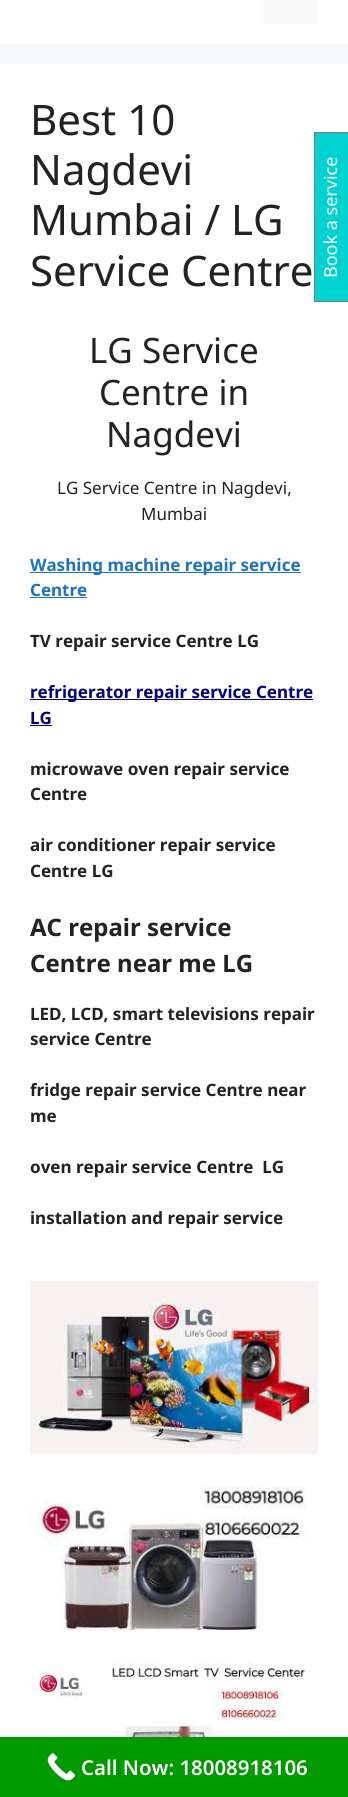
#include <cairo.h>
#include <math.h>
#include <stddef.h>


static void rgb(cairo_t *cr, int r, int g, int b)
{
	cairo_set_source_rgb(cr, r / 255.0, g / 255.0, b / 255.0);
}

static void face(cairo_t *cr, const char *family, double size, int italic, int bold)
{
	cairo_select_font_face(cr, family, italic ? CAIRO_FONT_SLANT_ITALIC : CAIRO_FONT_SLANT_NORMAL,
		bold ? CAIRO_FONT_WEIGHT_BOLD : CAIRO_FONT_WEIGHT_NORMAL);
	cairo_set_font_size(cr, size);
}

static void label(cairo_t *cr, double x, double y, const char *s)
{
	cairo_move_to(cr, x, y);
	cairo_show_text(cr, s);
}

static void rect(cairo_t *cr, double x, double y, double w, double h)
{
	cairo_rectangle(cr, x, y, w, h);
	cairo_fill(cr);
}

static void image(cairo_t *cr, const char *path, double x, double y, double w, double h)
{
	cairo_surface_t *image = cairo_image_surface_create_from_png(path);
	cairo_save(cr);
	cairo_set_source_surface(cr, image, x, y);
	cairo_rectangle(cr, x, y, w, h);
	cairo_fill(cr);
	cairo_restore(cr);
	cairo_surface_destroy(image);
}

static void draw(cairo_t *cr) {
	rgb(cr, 247, 248, 249);
	cairo_paint(cr);
	rgb(cr, 255, 255, 255);
	rect(cr, 0, 0, 348, 44);
	rgb(cr, 250, 250, 250);
	rect(cr, 263, 0, 55, 24);
	rgb(cr, 255, 255, 255);
	rect(cr, 0, 64, 348, 1673);
	face(cr, "Noto Sans", 42, 0, 0);
	rgb(cr, 34, 34, 34);
	label(cr, 30, 135, "Best 10");
	label(cr, 30, 185, "Nagdevi");
	label(cr, 30, 235, "Mumbai / LG");
	label(cr, 30, 286, "Service Centre");
	face(cr, "Noto Sans", 35, 0, 0);
	label(cr, 89, 363, "LG Service");
	label(cr, 99, 405, "Centre in");
	label(cr, 106, 447, "Nagdevi");
	face(cr, "Noto Sans", 17, 0, 0);
	label(cr, 57, 494, "LG Service Centre in Nagdevi,");
	label(cr, 141, 520, "Mumbai");
	rgb(cr, 30, 115, 190);
	rect(cr, 30, 572, 271, 1);
	face(cr, "Noto Sans", 17, 0, 1);
	label(cr, 30, 571, "Washing machine repair service");
	label(cr, 30, 596, "Centre");
	rect(cr, 30, 597, 57, 1);
	rgb(cr, 34, 34, 34);
	label(cr, 30, 647, "TV repair service Centre LG");
	rgb(cr, 0, 0, 128);
	rect(cr, 30, 699, 283, 1);
	label(cr, 30, 698, "refrigerator repair service Centre");
	label(cr, 30, 724, "LG");
	rect(cr, 30, 725, 22, 1);
	rgb(cr, 34, 34, 34);
	label(cr, 30, 775, "microwave oven repair service");
	label(cr, 30, 800, "Centre");
	label(cr, 30, 851, "air conditioner repair service");
	label(cr, 30, 877, "Centre LG");
	face(cr, "Noto Sans", 24, 0, 1);
	label(cr, 30, 936, "AC repair service");
	label(cr, 30, 972, "Centre near me LG");
	face(cr, "Noto Sans", 17, 0, 1);
	label(cr, 30, 1020, "LED, LCD, smart televisions repair");
	label(cr, 30, 1045, "service Centre");
	label(cr, 30, 1096, "fridge repair service Centre near");
	label(cr, 30, 1122, "me");
	label(cr, 30, 1173, "oven repair service Centre  LG");
	label(cr, 30, 1224, "installation and repair service");
	image(cr, "image0.png", 30, 1281, 288, 173);
	image(cr, "image1.png", 30, 1486, 277, 144);
	image(cr, "image2.png", 30, 1662, 281, 75);
	rgb(cr, 0, 209, 209);
	rect(cr, 315, 133, 33, 168);
	rgb(cr, 127, 127, 127);
	rect(cr, 314, 132, 1, 170);
	rect(cr, 314, 132, 34, 1);
	rect(cr, 314, 301, 34, 1);
	face(cr, "Noto Sans", 18, 0, 0);
	rgb(cr, 255, 255, 255);
	cairo_save(cr);
	cairo_translate(cr, 337, 278);
	cairo_rotate(cr, -90 * M_PI / 180);
	label(cr, 0, 0, "Book a service");
	cairo_restore(cr);
	rgb(cr, 0, 153, 0);
	rect(cr, 0, 1737, 348, 60);
	image(cr, "image3.png", 47, 1753, 29, 28);
	face(cr, "Noto Sans SemiBold", 20.4, 0, 0);
	rgb(cr, 255, 255, 255);
	label(cr, 81, 1775, "Call Now: 18008918106");
}

int main(void) {
	cairo_surface_t *surface = cairo_image_surface_create(CAIRO_FORMAT_RGB24, 348, 1797);
	cairo_t *cr = cairo_create(surface);
	cairo_font_options_t *options = cairo_font_options_create();
	cairo_font_options_set_hint_metrics(options, CAIRO_HINT_METRICS_OFF);
	cairo_font_options_set_hint_style(options, CAIRO_HINT_STYLE_NONE);
	cairo_set_font_options(cr, options);
	cairo_set_miter_limit(cr, 4);
	draw(cr);
	cairo_surface_write_to_png(surface, "render.png");
	cairo_font_options_destroy(options);
	cairo_destroy(cr);
	cairo_surface_destroy(surface);
	return 0;
}
